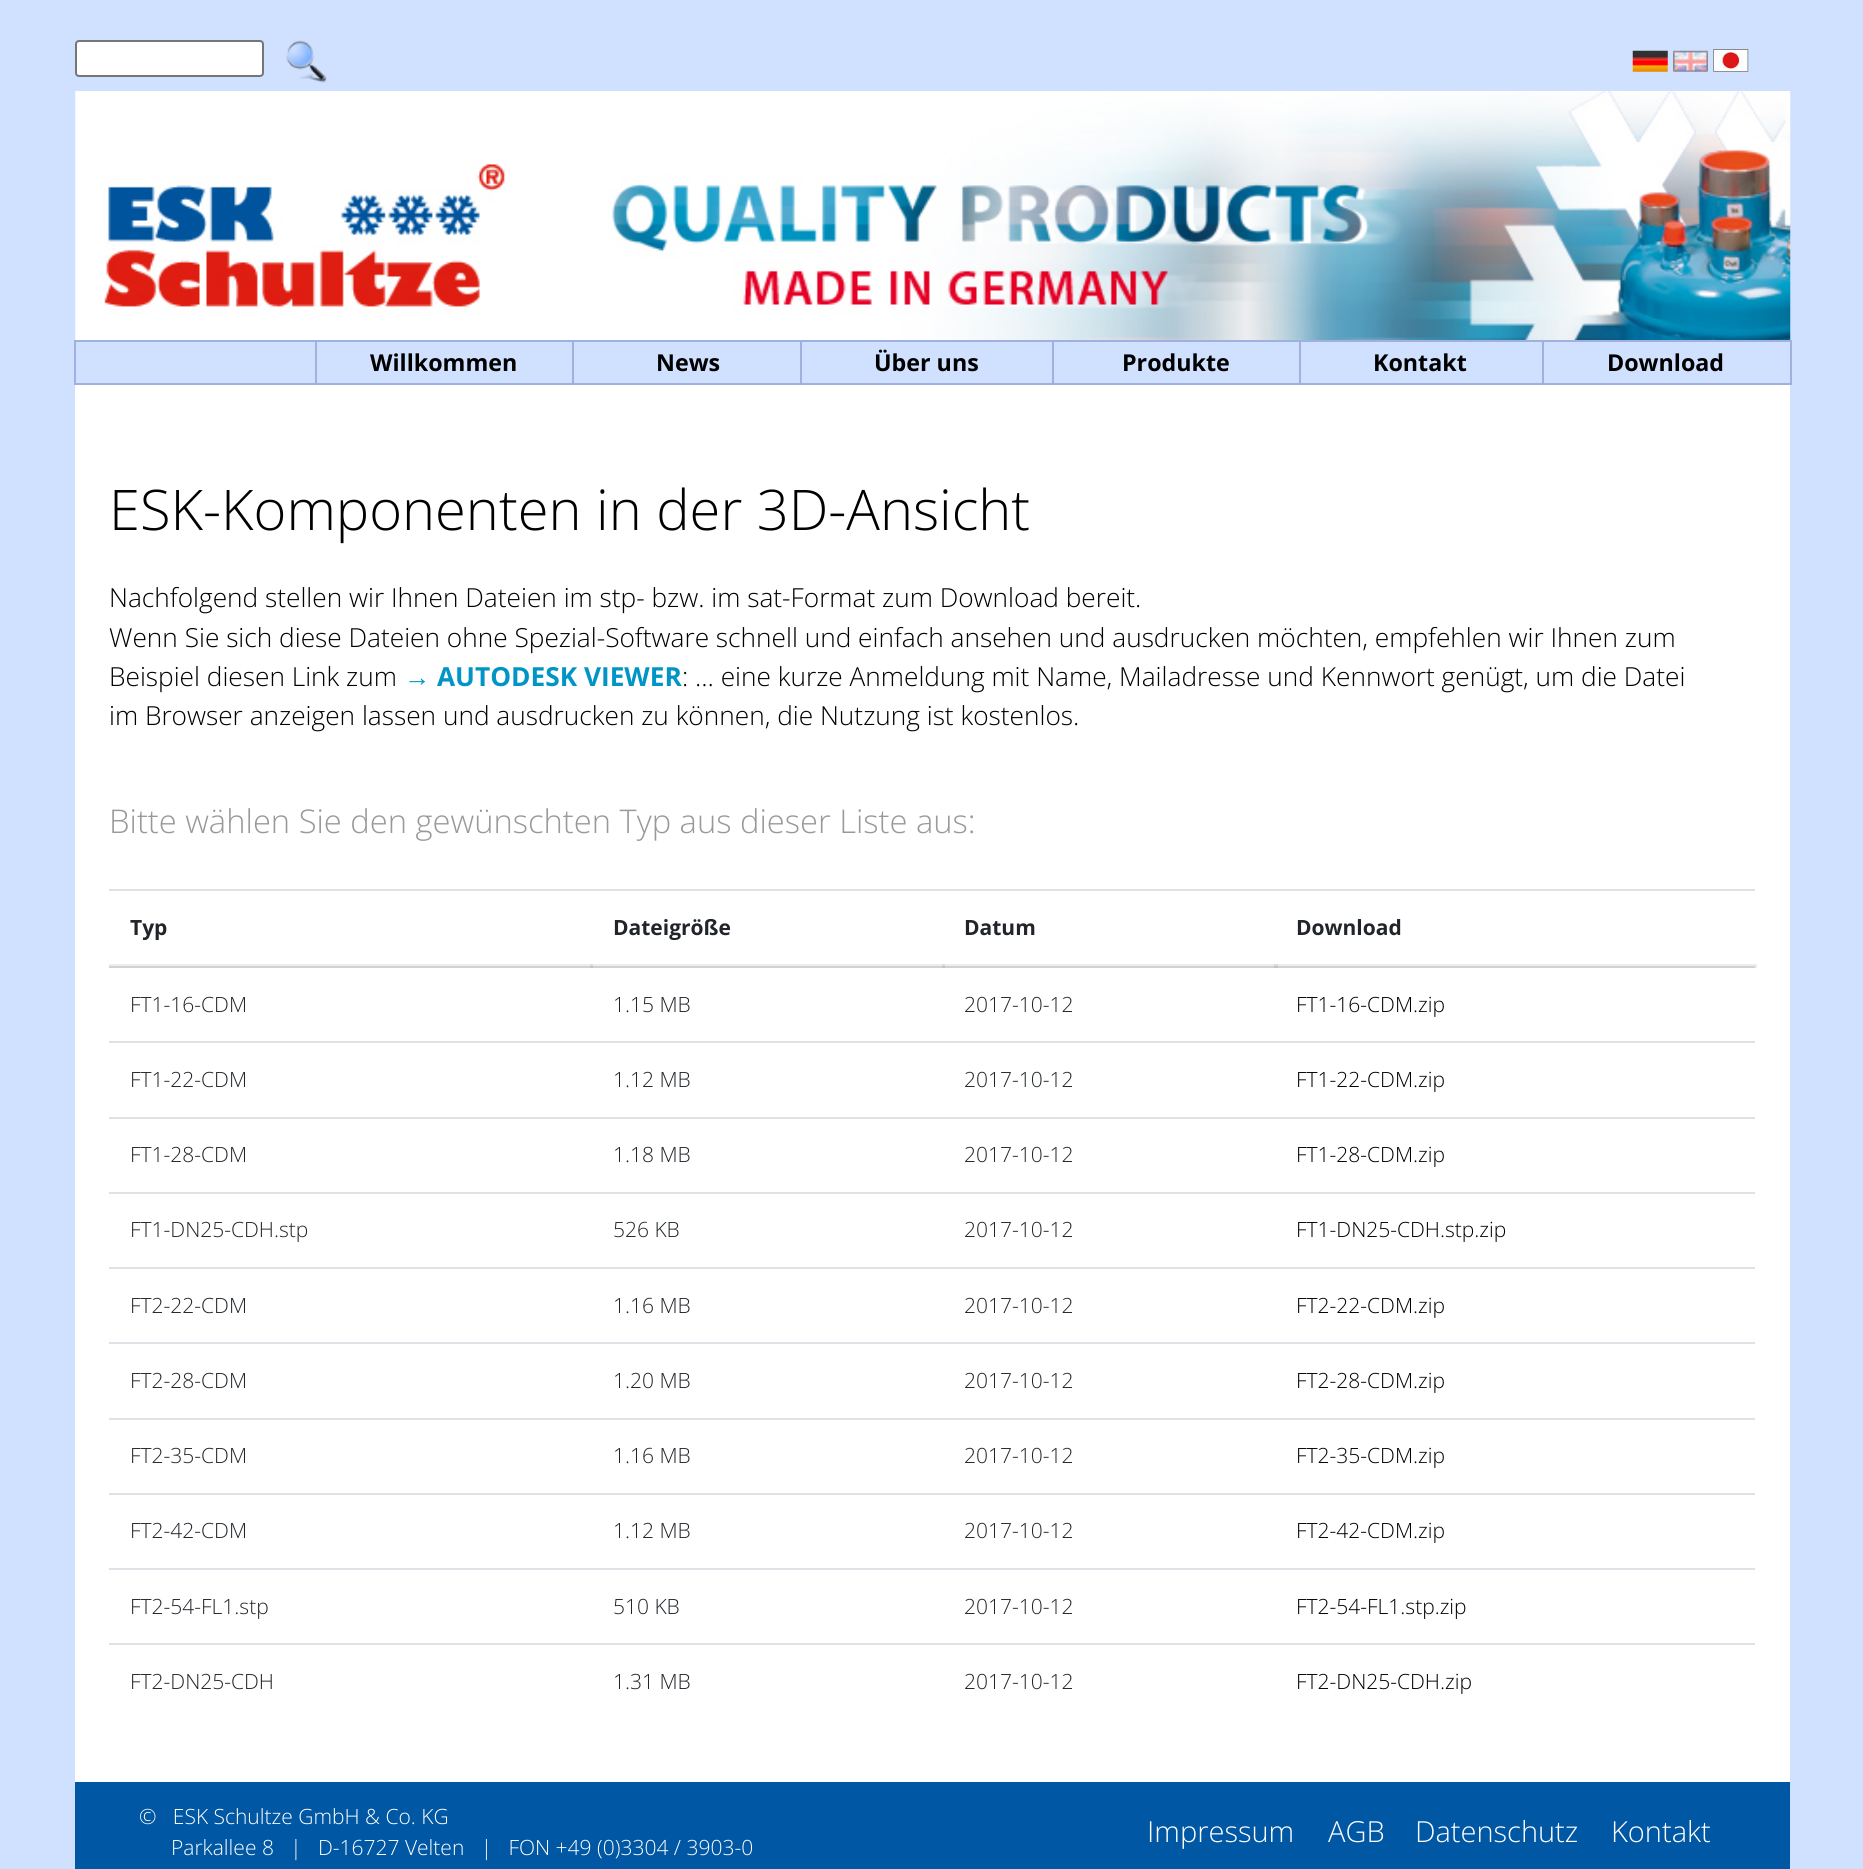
#include <cairo.h>
#include <math.h>
#include <stddef.h>


static void rgb(cairo_t *cr, int r, int g, int b)
{
	cairo_set_source_rgb(cr, r / 255.0, g / 255.0, b / 255.0);
}

static void face(cairo_t *cr, const char *family, double size, int italic, int bold)
{
	cairo_select_font_face(cr, family, italic ? CAIRO_FONT_SLANT_ITALIC : CAIRO_FONT_SLANT_NORMAL,
		bold ? CAIRO_FONT_WEIGHT_BOLD : CAIRO_FONT_WEIGHT_NORMAL);
	cairo_set_font_size(cr, size);
}

static void label(cairo_t *cr, double x, double y, const char *s)
{
	cairo_move_to(cr, x, y);
	cairo_show_text(cr, s);
}

static void rect(cairo_t *cr, double x, double y, double w, double h)
{
	cairo_rectangle(cr, x, y, w, h);
	cairo_fill(cr);
}

static void rrect(cairo_t *cr, double x, double y, double w, double h, double r)
{
	cairo_new_sub_path(cr);
	cairo_arc(cr, x + w - r, y + h - r, r, 0, M_PI / 2);
	cairo_arc(cr, x + r, y + h - r, r, M_PI / 2, M_PI);
	cairo_arc(cr, x + r, y + r, r, M_PI, 1.5 * M_PI);
	cairo_arc(cr, x + w - r, y + r, r, 1.5 * M_PI, 2 * M_PI);
	cairo_close_path(cr);
}

static void image(cairo_t *cr, const char *path, double x, double y, double w, double h)
{
	cairo_surface_t *image = cairo_image_surface_create_from_png(path);
	cairo_save(cr);
	cairo_set_source_surface(cr, image, x, y);
	cairo_rectangle(cr, x, y, w, h);
	cairo_fill(cr);
	cairo_restore(cr);
	cairo_surface_destroy(image);
}

static void draw(cairo_t *cr) {
	rgb(cr, 208, 224, 255);
	cairo_paint(cr);
	rgb(cr, 255, 255, 255);
	rrect(cr, 76, 41, 187, 35, 3);
	cairo_fill_preserve(cr);
	rgb(cr, 118, 118, 118);
	cairo_stroke(cr);
	image(cr, "image0.png", 286, 40, 41, 43);
	image(cr, "image1.png", 75, 91, 1716, 249);
	image(cr, "image2.png", 1632, 50, 36, 22);
	image(cr, "image3.png", 1673, 50, 35, 22);
	image(cr, "image4.png", 1713, 49, 36, 23);
	cairo_rectangle(cr, 75, 341, 243, 43);
	rgb(cr, 160, 176, 223);
	cairo_stroke(cr);
	rgb(cr, 208, 224, 255);
	rect(cr, 317, 342, 2, 41);
	cairo_rectangle(cr, 316, 341, 257, 43);
	rgb(cr, 160, 176, 223);
	cairo_stroke(cr);
	face(cr, "Open Sans", 23.25, 0, 1);
	rgb(cr, 0, 0, 0);
	label(cr, 370, 371, "Willkommen");
	cairo_rectangle(cr, 573, 341, 231, 43);
	rgb(cr, 160, 176, 223);
	cairo_stroke(cr);
	rgb(cr, 0, 0, 0);
	label(cr, 656, 371, "News");
	rgb(cr, 208, 224, 255);
	rect(cr, 803, 342, 2, 41);
	cairo_rectangle(cr, 801, 341, 253, 43);
	rgb(cr, 160, 176, 223);
	cairo_stroke(cr);
	rgb(cr, 0, 0, 0);
	label(cr, 874, 371, "Über uns");
	rgb(cr, 208, 224, 255);
	rect(cr, 1054, 342, 1, 41);
	cairo_rectangle(cr, 1053, 341, 248, 43);
	rgb(cr, 160, 176, 223);
	cairo_stroke(cr);
	rgb(cr, 0, 0, 0);
	label(cr, 1122, 371, "Produkte");
	rgb(cr, 208, 224, 255);
	rect(cr, 1301, 342, 1, 41);
	cairo_rectangle(cr, 1300, 341, 243, 43);
	rgb(cr, 160, 176, 223);
	cairo_stroke(cr);
	rgb(cr, 0, 0, 0);
	label(cr, 1373, 371, "Kontakt");
	cairo_rectangle(cr, 1543, 341, 248, 43);
	rgb(cr, 160, 176, 223);
	cairo_stroke(cr);
	rgb(cr, 0, 0, 0);
	label(cr, 1607, 371, "Download");
	rgb(cr, 255, 255, 255);
	rect(cr, 75, 385, 1715, 1397);
	rgb(cr, 237, 237, 237);
	rect(cr, 109, 964, 1169, 2);
	rgb(cr, 220, 220, 220);
	rect(cr, 590, 964, 3, 4);
	rect(cr, 942, 964, 3, 4);
	rgb(cr, 237, 237, 237);
	rect(cr, 1274, 964, 483, 4);
	rgb(cr, 220, 220, 220);
	rect(cr, 1274, 964, 4, 2);
	face(cr, "Open Sans Light", 56, 0, 0);
	rgb(cr, 0, 0, 0);
	label(cr, 109, 530, "ESK-Komponenten in der 3D-Ansicht");
	face(cr, "Open Sans Light", 26.25, 0, 0);
	label(cr, 109, 607, "Nachfolgend stellen wir Ihnen Dateien im stp- bzw. im sat-Format zum Download bereit.");
	label(cr, 109, 647, "Wenn Sie sich diese Dateien ohne Spezial-Software schnell und einfach ansehen und ausdrucken möchten, empfehlen wir Ihnen zum");
	label(cr, 109, 686, "Beispiel diesen Link zum");
	face(cr, "Liberation Sans", 26.25, 0, 1);
	rgb(cr, 0, 149, 198);
	label(cr, 404, 686, "→");
	face(cr, "Open Sans", 26.25, 0, 1);
	label(cr, 437, 686, "AUTODESK VIEWER");
	face(cr, "Open Sans Light", 26.25, 0, 0);
	rgb(cr, 0, 0, 0);
	label(cr, 682, 686, ": … eine kurze Anmeldung mit Name, Mailadresse und Kennwort genügt, um die Datei");
	label(cr, 109, 725, "im Browser anzeigen lassen und ausdrucken zu können, die Nutzung ist kostenlos.");
	face(cr, "Open Sans Light", 32.7, 0, 0);
	rgb(cr, 153, 153, 153);
	label(cr, 109, 833, "Bitte wählen Sie den gewünschten Typ aus dieser Liste aus:");
	face(cr, "Open Sans", 21, 0, 1);
	rgb(cr, 33, 37, 41);
	label(cr, 130, 935, "Typ");
	label(cr, 613, 935, "Dateigröße");
	label(cr, 964, 935, "Datum");
	rgb(cr, 222, 226, 230);
	rect(cr, 109, 889, 1646, 2);
	rgb(cr, 33, 37, 41);
	label(cr, 1296, 935, "Download");
	rgb(cr, 206, 210, 214);
	rect(cr, 1274, 966, 481, 2);
	rgb(cr, 192, 195, 199);
	rect(cr, 1274, 966, 4, 2);
	rgb(cr, 206, 210, 214);
	rect(cr, 942, 966, 334, 2);
	rgb(cr, 192, 195, 199);
	rect(cr, 942, 966, 3, 2);
	rgb(cr, 206, 210, 214);
	rect(cr, 109, 966, 834, 2);
	rgb(cr, 192, 195, 199);
	rect(cr, 590, 966, 3, 2);
	face(cr, "Open Sans Light", 21, 0, 0);
	rgb(cr, 33, 37, 41);
	label(cr, 130, 1012, "FT1-16-CDM");
	rgb(cr, 192, 195, 199);
	rect(cr, 942, 966, 1, 2);
	rgb(cr, 33, 37, 41);
	label(cr, 613, 1012, "1.15 MB");
	rgb(cr, 192, 195, 199);
	rect(cr, 1274, 966, 2, 2);
	rgb(cr, 33, 37, 41);
	label(cr, 964, 1012, "2017-10-12");
	rgb(cr, 0, 0, 0);
	label(cr, 1296, 1012, "FT1-16-CDM.zip");
	rgb(cr, 33, 37, 41);
	label(cr, 130, 1087, "FT1-22-CDM");
	label(cr, 613, 1087, "1.12 MB");
	label(cr, 964, 1087, "2017-10-12");
	rgb(cr, 222, 226, 230);
	rect(cr, 109, 1041, 1646, 2);
	rgb(cr, 0, 0, 0);
	label(cr, 1296, 1087, "FT1-22-CDM.zip");
	rgb(cr, 33, 37, 41);
	label(cr, 130, 1162, "FT1-28-CDM");
	label(cr, 613, 1162, "1.18 MB");
	label(cr, 964, 1162, "2017-10-12");
	rgb(cr, 222, 226, 230);
	rect(cr, 109, 1117, 1646, 2);
	rgb(cr, 0, 0, 0);
	label(cr, 1296, 1162, "FT1-28-CDM.zip");
	rgb(cr, 33, 37, 41);
	label(cr, 130, 1237, "FT1-DN25-CDH.stp");
	label(cr, 613, 1237, "526 KB");
	label(cr, 964, 1237, "2017-10-12");
	rgb(cr, 222, 226, 230);
	rect(cr, 109, 1192, 1646, 2);
	rgb(cr, 0, 0, 0);
	label(cr, 1296, 1237, "FT1-DN25-CDH.stp.zip");
	rgb(cr, 33, 37, 41);
	label(cr, 130, 1313, "FT2-22-CDM");
	label(cr, 613, 1313, "1.16 MB");
	label(cr, 964, 1313, "2017-10-12");
	rgb(cr, 222, 226, 230);
	rect(cr, 109, 1267, 1646, 2);
	rgb(cr, 0, 0, 0);
	label(cr, 1296, 1313, "FT2-22-CDM.zip");
	rgb(cr, 33, 37, 41);
	label(cr, 130, 1388, "FT2-28-CDM");
	label(cr, 613, 1388, "1.20 MB");
	label(cr, 964, 1388, "2017-10-12");
	rgb(cr, 222, 226, 230);
	rect(cr, 109, 1342, 1646, 2);
	rgb(cr, 0, 0, 0);
	label(cr, 1296, 1388, "FT2-28-CDM.zip");
	rgb(cr, 33, 37, 41);
	label(cr, 130, 1463, "FT2-35-CDM");
	label(cr, 613, 1463, "1.16 MB");
	label(cr, 964, 1463, "2017-10-12");
	rgb(cr, 222, 226, 230);
	rect(cr, 109, 1418, 1646, 2);
	rgb(cr, 0, 0, 0);
	label(cr, 1296, 1463, "FT2-35-CDM.zip");
	rgb(cr, 33, 37, 41);
	label(cr, 130, 1538, "FT2-42-CDM");
	label(cr, 613, 1538, "1.12 MB");
	label(cr, 964, 1538, "2017-10-12");
	rgb(cr, 222, 226, 230);
	rect(cr, 109, 1493, 1646, 2);
	rgb(cr, 0, 0, 0);
	label(cr, 1296, 1538, "FT2-42-CDM.zip");
	rgb(cr, 33, 37, 41);
	label(cr, 130, 1614, "FT2-54-FL1.stp");
	label(cr, 613, 1614, "510 KB");
	label(cr, 964, 1614, "2017-10-12");
	rgb(cr, 222, 226, 230);
	rect(cr, 109, 1568, 1646, 2);
	rgb(cr, 0, 0, 0);
	label(cr, 1296, 1614, "FT2-54-FL1.stp.zip");
	rgb(cr, 33, 37, 41);
	label(cr, 130, 1689, "FT2-DN25-CDH");
	label(cr, 613, 1689, "1.31 MB");
	label(cr, 964, 1689, "2017-10-12");
	rgb(cr, 222, 226, 230);
	rect(cr, 109, 1643, 1646, 2);
	rgb(cr, 0, 0, 0);
	label(cr, 1296, 1689, "FT2-DN25-CDH.zip");
	rgb(cr, 0, 87, 163);
	rect(cr, 75, 1782, 1715, 87);
	rgb(cr, 255, 255, 255);
	label(cr, 139, 1824, "©   ESK Schultze GmbH & Co. KG");
	label(cr, 171, 1855, "Parkallee 8   |   D-16727 Velten   |   FON +49 (0)3304 / 3903-0");
	face(cr, "Open Sans Light", 29, 0, 0);
	label(cr, 1147, 1842, "Impressum");
	label(cr, 1328, 1842, "AGB");
	label(cr, 1415, 1842, "Datenschutz");
	label(cr, 1611, 1842, "Kontakt");
}

int main(void) {
	cairo_surface_t *surface = cairo_image_surface_create(CAIRO_FORMAT_RGB24, 1863, 1869);
	cairo_t *cr = cairo_create(surface);
	cairo_font_options_t *options = cairo_font_options_create();
	cairo_font_options_set_hint_metrics(options, CAIRO_HINT_METRICS_OFF);
	cairo_font_options_set_hint_style(options, CAIRO_HINT_STYLE_NONE);
	cairo_set_font_options(cr, options);
	cairo_set_miter_limit(cr, 4);
	draw(cr);
	cairo_surface_write_to_png(surface, "render.png");
	cairo_font_options_destroy(options);
	cairo_destroy(cr);
	cairo_surface_destroy(surface);
	return 0;
}
